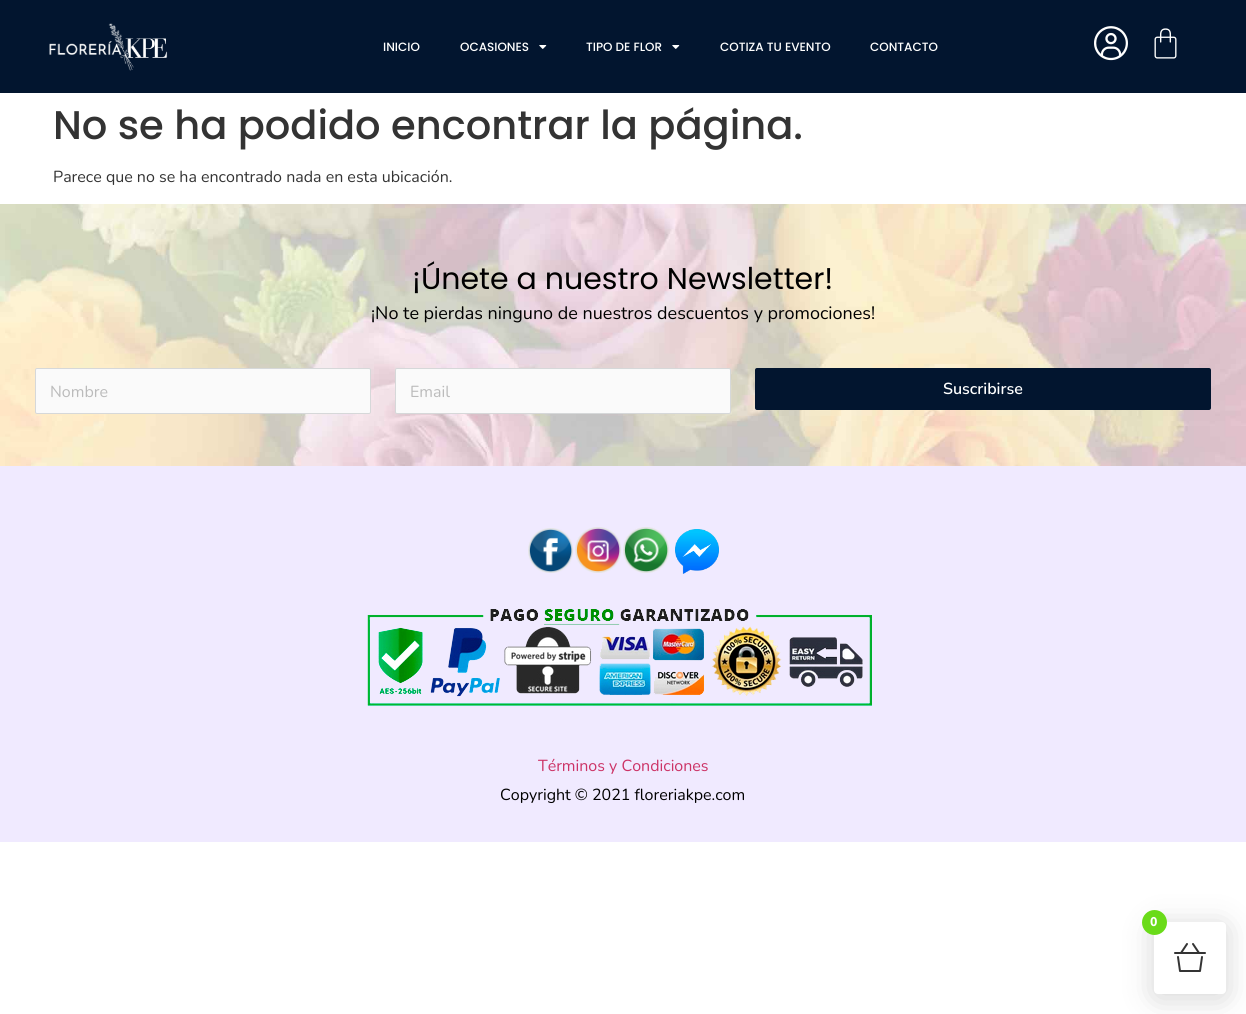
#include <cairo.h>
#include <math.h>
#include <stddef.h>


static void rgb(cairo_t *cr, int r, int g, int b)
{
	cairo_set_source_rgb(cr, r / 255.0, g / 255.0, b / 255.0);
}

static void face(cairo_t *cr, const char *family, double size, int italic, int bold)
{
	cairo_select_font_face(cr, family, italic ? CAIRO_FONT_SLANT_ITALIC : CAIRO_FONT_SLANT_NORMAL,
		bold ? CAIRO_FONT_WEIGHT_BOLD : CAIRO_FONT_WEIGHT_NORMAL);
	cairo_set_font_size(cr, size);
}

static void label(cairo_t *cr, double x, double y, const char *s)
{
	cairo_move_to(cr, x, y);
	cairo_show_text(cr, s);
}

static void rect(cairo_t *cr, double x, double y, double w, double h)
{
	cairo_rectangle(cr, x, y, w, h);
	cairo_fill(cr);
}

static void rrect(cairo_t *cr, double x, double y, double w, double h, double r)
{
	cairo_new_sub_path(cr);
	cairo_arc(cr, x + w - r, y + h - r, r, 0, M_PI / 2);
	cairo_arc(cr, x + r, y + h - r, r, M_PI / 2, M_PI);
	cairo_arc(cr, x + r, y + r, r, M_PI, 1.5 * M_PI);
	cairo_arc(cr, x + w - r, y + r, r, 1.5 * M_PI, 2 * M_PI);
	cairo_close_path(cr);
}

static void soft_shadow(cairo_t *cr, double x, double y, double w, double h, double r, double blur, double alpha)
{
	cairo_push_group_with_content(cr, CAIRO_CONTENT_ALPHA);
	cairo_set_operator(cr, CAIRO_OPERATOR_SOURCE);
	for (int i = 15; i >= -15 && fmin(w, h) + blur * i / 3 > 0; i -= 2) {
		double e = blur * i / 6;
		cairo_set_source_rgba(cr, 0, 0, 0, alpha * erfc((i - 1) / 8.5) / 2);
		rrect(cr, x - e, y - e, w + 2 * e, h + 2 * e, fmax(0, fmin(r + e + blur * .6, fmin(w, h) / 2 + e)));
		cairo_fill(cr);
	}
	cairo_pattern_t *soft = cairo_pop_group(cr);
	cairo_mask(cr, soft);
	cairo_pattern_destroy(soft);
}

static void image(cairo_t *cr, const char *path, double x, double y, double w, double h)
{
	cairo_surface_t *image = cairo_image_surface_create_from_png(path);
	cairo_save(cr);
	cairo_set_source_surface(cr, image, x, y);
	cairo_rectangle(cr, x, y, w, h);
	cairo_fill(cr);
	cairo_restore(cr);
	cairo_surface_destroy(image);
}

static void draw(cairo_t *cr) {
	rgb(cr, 255, 255, 255);
	cairo_paint(cr);
	rgb(cr, 2, 21, 47);
	rect(cr, 0, 0, 1246, 93);
	image(cr, "image0.png", 49, 23, 119, 48);
	face(cr, "Poppins Medium", 12, 0, 0);
	rgb(cr, 255, 255, 255);
	label(cr, 383, 51, "INICIO");
	label(cr, 460, 51, "OCASIONES");
	image(cr, "image1.png", 539, 45, 8, 4);
	label(cr, 586, 51, "TIPO DE FLOR");
	image(cr, "image1.png", 672, 45, 8, 4);
	label(cr, 720, 51, "COTIZA TU EVENTO");
	label(cr, 870, 51, "CONTACTO");
	image(cr, "image2.png", 1094, 26, 34, 35);
	image(cr, "image3.png", 1154, 28, 23, 31);
	face(cr, "Poppins Medium", 40, 0, 0);
	rgb(cr, 51, 51, 51);
	label(cr, 53, 139, "No se ha podido encontrar la página.");
	face(cr, "Nunito", 16, 0, 0);
	label(cr, 53, 182, "Parece que no se ha encontrado nada en esta ubicación.");
	image(cr, "image4.png", 0, 204, 1246, 262);
	face(cr, "Poppins", 30, 0, 0);
	rgb(cr, 0, 0, 0);
	label(cr, 412, 289, "¡Únete a nuestro Newsletter!");
	face(cr, "Nunito", 18, 0, 0);
	label(cr, 371, 319, "¡No te pierdas ninguno de nuestros descuentos y promociones!");
	rgb(cr, 250, 250, 250);
	rrect(cr, 35.5, 368.5, 335, 45, 1.5);
	cairo_fill_preserve(cr);
	rgb(cr, 214, 216, 217);
	cairo_set_line_width(cr, 1);
	cairo_stroke(cr);
	face(cr, "Nunito", 16, 0, 0);
	rgb(cr, 187, 187, 187);
	label(cr, 50, 397, "Nombre");
	rgb(cr, 250, 250, 250);
	rrect(cr, 395.5, 368.5, 335, 45, 1.5);
	cairo_fill_preserve(cr);
	rgb(cr, 214, 216, 217);
	cairo_stroke(cr);
	rgb(cr, 187, 187, 187);
	label(cr, 410, 397, "Email");
	rgb(cr, 2, 21, 47);
	rrect(cr, 755, 368, 456, 42, 2);
	cairo_fill(cr);
	face(cr, "Nunito SemiBold", 16, 0, 0);
	rgb(cr, 255, 255, 255);
	label(cr, 943, 394, "Suscribirse");
	rgb(cr, 240, 234, 255);
	rect(cr, 0, 466, 1246, 376);
	image(cr, "image5.png", 528, 528, 46, 45);
	image(cr, "image6.png", 575, 527, 47, 46);
	image(cr, "image7.png", 623, 527, 47, 46);
	image(cr, "image8.png", 675, 529, 44, 45);
	image(cr, "image9.png", 367, 609, 505, 97);
	face(cr, "Nunito", 16, 0, 0);
	rgb(cr, 204, 51, 102);
	label(cr, 538, 771, "Términos y Condiciones");
	rgb(cr, 0, 0, 0);
	label(cr, 500, 800, "Copyright © 2021 floreriakpe.com");
	rgb(cr, 0, 0, 0);
	soft_shadow(cr, 1154, 926, 72, 72, 4, 15, 0.17);
	rgb(cr, 255, 255, 255);
	rrect(cr, 1154, 922, 72, 72, 4);
	cairo_fill(cr);
	rgb(cr, 106, 219, 25);
	cairo_arc(cr, 1154.5, 922.5, 12.5, 0, 2 * M_PI);
	cairo_fill(cr);
	face(cr, "Source Sans Pro", 14, 0, 1);
	rgb(cr, 255, 255, 255);
	label(cr, 1150, 926, "0");
	image(cr, "image10.png", 1174, 943, 32, 29);
}

int main(void) {
	cairo_surface_t *surface = cairo_image_surface_create(CAIRO_FORMAT_RGB24, 1246, 1014);
	cairo_t *cr = cairo_create(surface);
	cairo_font_options_t *options = cairo_font_options_create();
	cairo_font_options_set_hint_metrics(options, CAIRO_HINT_METRICS_OFF);
	cairo_font_options_set_hint_style(options, CAIRO_HINT_STYLE_NONE);
	cairo_set_font_options(cr, options);
	cairo_set_miter_limit(cr, 4);
	draw(cr);
	cairo_surface_write_to_png(surface, "render.png");
	cairo_font_options_destroy(options);
	cairo_destroy(cr);
	cairo_surface_destroy(surface);
	return 0;
}
